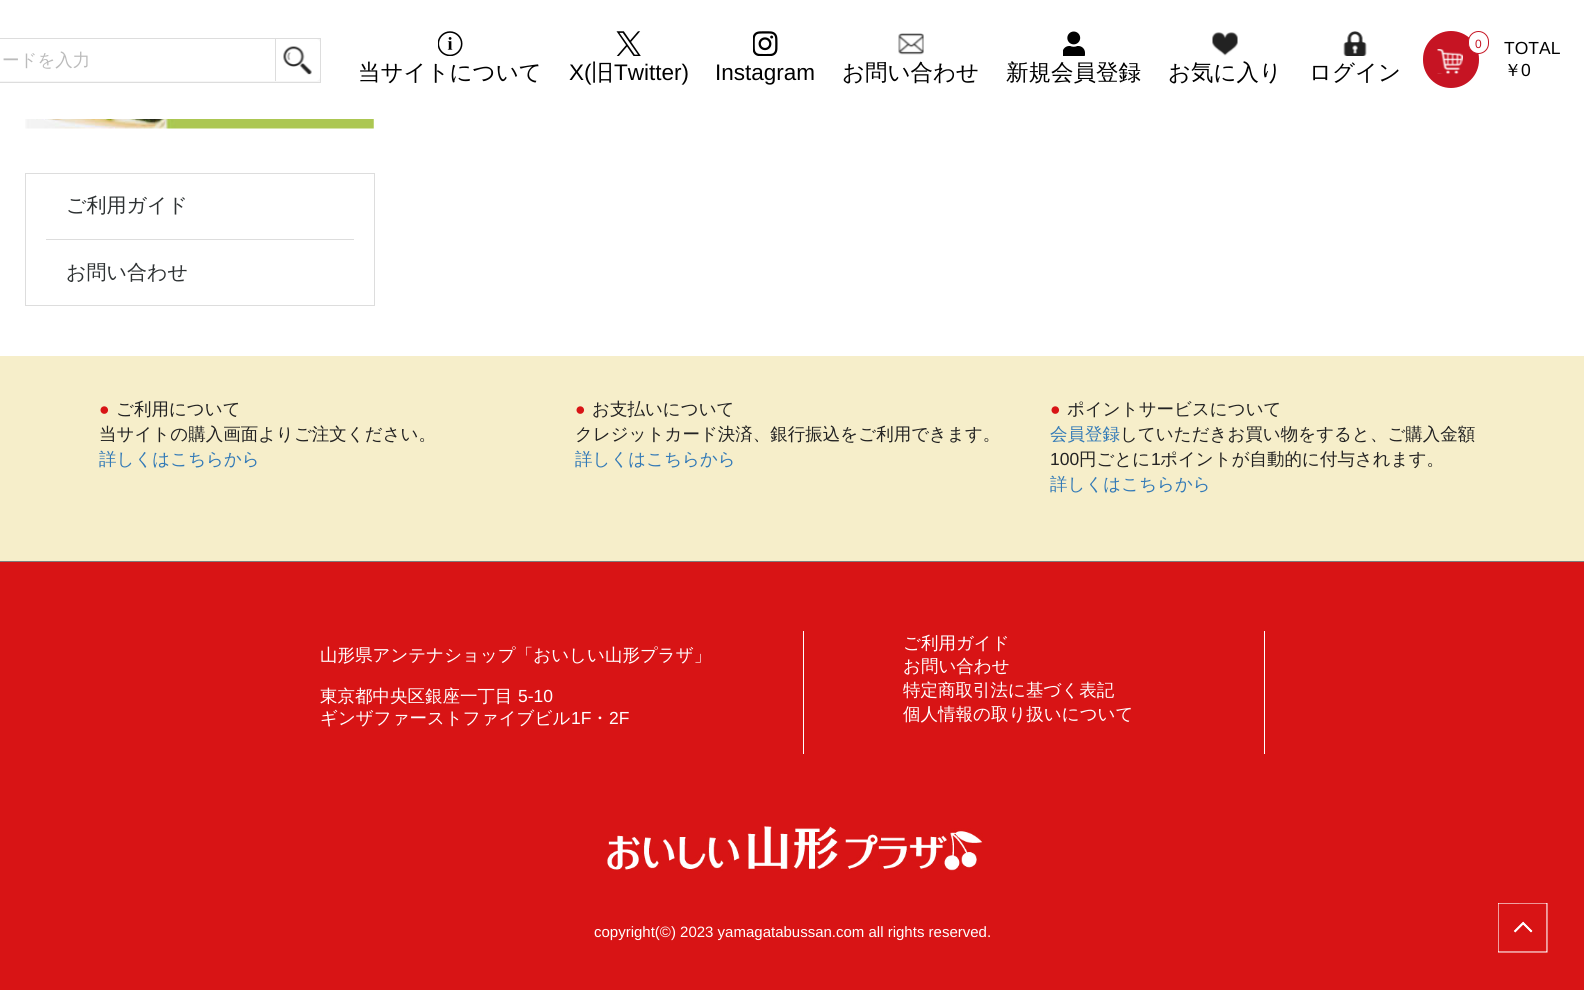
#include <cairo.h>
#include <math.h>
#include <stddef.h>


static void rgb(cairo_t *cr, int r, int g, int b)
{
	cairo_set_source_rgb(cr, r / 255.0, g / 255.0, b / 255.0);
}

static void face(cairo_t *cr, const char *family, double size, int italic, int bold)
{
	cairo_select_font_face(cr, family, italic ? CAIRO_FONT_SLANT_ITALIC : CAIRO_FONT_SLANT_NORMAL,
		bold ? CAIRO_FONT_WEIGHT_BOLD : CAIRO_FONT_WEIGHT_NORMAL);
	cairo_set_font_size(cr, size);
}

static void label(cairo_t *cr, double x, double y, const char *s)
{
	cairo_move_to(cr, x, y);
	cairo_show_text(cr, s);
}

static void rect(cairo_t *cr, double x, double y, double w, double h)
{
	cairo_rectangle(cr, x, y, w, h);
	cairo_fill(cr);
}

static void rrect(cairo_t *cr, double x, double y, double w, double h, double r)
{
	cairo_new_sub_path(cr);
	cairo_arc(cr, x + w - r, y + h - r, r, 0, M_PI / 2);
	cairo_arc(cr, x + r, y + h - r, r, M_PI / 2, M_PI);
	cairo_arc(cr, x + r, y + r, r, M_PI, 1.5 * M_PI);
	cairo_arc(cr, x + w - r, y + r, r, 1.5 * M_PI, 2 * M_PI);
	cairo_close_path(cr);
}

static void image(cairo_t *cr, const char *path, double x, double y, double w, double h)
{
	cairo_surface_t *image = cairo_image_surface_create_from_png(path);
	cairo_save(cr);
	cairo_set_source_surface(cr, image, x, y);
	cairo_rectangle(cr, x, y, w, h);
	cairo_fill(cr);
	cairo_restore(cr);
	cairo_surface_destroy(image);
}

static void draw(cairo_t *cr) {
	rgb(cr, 255, 255, 255);
	cairo_paint(cr);
	rgb(cr, 246, 246, 246);
	cairo_rectangle(cr, -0.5, 38.5, 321, 44);
	cairo_fill_preserve(cr);
	rgb(cr, 221, 221, 221);
	cairo_set_line_width(cr, 1);
	cairo_stroke(cr);
	rgb(cr, 255, 255, 255);
	rrect(cr, -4, 39, 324, 42, 4);
	cairo_fill(cr);
	face(cr, "WenQuanYi Zen Hei Medium", 17.5, 0, 0);
	rgb(cr, 187, 187, 187);
	label(cr, 2, 66, "ードを入力");
	rgb(cr, 221, 221, 221);
	rect(cr, 275, 39, 1, 42);
	image(cr, "image0.png", 283, 46, 29, 29);
	image(cr, "image1.png", 438, 31, 25, 25);
	face(cr, "WenQuanYi Zen Hei Medium", 22.5, 0, 0);
	rgb(cr, 0, 0, 0);
	label(cr, 358, 80, "当サイトについて");
	image(cr, "image2.png", 616, 31, 25, 25);
	face(cr, "Liberation Sans", 22.5, 0, 0);
	label(cr, 569, 80, "X(");
	face(cr, "WenQuanYi Zen Hei Medium", 22.5, 0, 0);
	label(cr, 591, 80, "旧");
	face(cr, "Liberation Sans", 22.5, 0, 0);
	label(cr, 614, 80, "Twitter)");
	image(cr, "image3.png", 753, 31, 25, 25);
	label(cr, 715, 80, "Instagram");
	image(cr, "image4.png", 898, 33, 26, 22);
	face(cr, "WenQuanYi Zen Hei Medium", 22.5, 0, 0);
	label(cr, 842, 80, "お問い合わせ");
	image(cr, "image5.png", 1063, 31, 22, 25);
	label(cr, 1006, 80, "新規会員登録");
	image(cr, "image6.png", 1212, 32, 26, 24);
	label(cr, 1168, 80, "お気に入り");
	image(cr, "image7.png", 1343, 31, 24, 25);
	label(cr, 1309, 80, "ログイン");
	rgb(cr, 198, 20, 35);
	rrect(cr, 1423, 31, 56, 57, 28);
	cairo_fill(cr);
	rgb(cr, 255, 255, 255);
	rrect(cr, 1468.5, 31.5, 20, 22, 10);
	cairo_fill_preserve(cr);
	rgb(cr, 198, 20, 35);
	cairo_stroke(cr);
	face(cr, "Liberation Sans", 12, 0, 0);
	label(cr, 1475, 48, "0");
	image(cr, "image8.png", 1437, 49, 26, 25);
	face(cr, "Liberation Sans", 17.5, 0, 0);
	rgb(cr, 0, 0, 0);
	label(cr, 1504, 54, "TOTAL");
	face(cr, "WenQuanYi Zen Hei Medium", 17.5, 0, 0);
	label(cr, 1504, 76, "￥");
	face(cr, "Liberation Sans", 17.5, 0, 0);
	label(cr, 1521, 76, "0");
	image(cr, "image9.png", 25, 119, 349, 10);
	cairo_rectangle(cr, 25.5, 173.5, 349, 132);
	rgb(cr, 221, 221, 221);
	cairo_stroke(cr);
	rect(cr, 46, 239, 308, 1);
	face(cr, "WenQuanYi Zen Hei Medium", 20, 0, 0);
	rgb(cr, 46, 50, 51);
	label(cr, 66, 212, "ご利用ガイド");
	label(cr, 66, 279, "お問い合わせ");
	rgb(cr, 246, 238, 202);
	rect(cr, 0, 356, 1584, 205);
	face(cr, "Liberation Sans", 17.5, 0, 0);
	rgb(cr, 216, 20, 21);
	label(cr, 99, 415, "●");
	face(cr, "WenQuanYi Zen Hei Medium", 17.5, 0, 0);
	rgb(cr, 34, 34, 34);
	label(cr, 116, 415, "ご利用について");
	label(cr, 99, 440, "当サイトの購入画面よりご注文ください。");
	rgb(cr, 51, 122, 183);
	label(cr, 99, 465, "詳しくはこちらから");
	face(cr, "Liberation Sans", 17.5, 0, 0);
	rgb(cr, 216, 20, 21);
	label(cr, 575, 415, "●");
	face(cr, "WenQuanYi Zen Hei Medium", 17.5, 0, 0);
	rgb(cr, 34, 34, 34);
	label(cr, 592, 415, "お支払いについて");
	label(cr, 575, 440, "クレジットカード決済、銀行振込をご利用できます。");
	rgb(cr, 51, 122, 183);
	label(cr, 575, 465, "詳しくはこちらから");
	face(cr, "Liberation Sans", 17.5, 0, 0);
	rgb(cr, 216, 20, 21);
	label(cr, 1050, 415, "●");
	face(cr, "WenQuanYi Zen Hei Medium", 17.5, 0, 0);
	rgb(cr, 34, 34, 34);
	label(cr, 1067, 415, "ポイントサービスについて");
	rgb(cr, 51, 122, 183);
	label(cr, 1050, 440, "会員登録");
	rgb(cr, 34, 34, 34);
	label(cr, 1120, 440, "していただきお買い物をすると、ご購入金額");
	face(cr, "Liberation Sans", 17.5, 0, 0);
	label(cr, 1050, 465, "100");
	face(cr, "WenQuanYi Zen Hei Medium", 17.5, 0, 0);
	label(cr, 1079, 465, "円ごとに");
	face(cr, "Liberation Sans", 17.5, 0, 0);
	label(cr, 1151, 465, "1");
	face(cr, "WenQuanYi Zen Hei Medium", 17.5, 0, 0);
	label(cr, 1160, 465, "ポイントが自動的に付与されます。");
	rgb(cr, 51, 122, 183);
	label(cr, 1050, 490, "詳しくはこちらから");
	rgb(cr, 216, 20, 21);
	rect(cr, 0, 562, 1584, 428);
	rgb(cr, 125, 125, 125);
	rect(cr, 0, 561, 1584, 1);
	rgb(cr, 255, 255, 255);
	label(cr, 320, 661, "山形県アンテナショップ「おいしい山形プラザ」");
	label(cr, 320, 702, "東京都中央区銀座一丁目");
	face(cr, "Liberation Sans", 17.5, 0, 0);
	label(cr, 518, 702, "5-10");
	face(cr, "WenQuanYi Zen Hei Medium", 17.5, 0, 0);
	label(cr, 320, 724, "ギンザファーストファイブビル");
	face(cr, "Liberation Sans", 17.5, 0, 0);
	label(cr, 571, 724, "1F");
	face(cr, "WenQuanYi Zen Hei Medium", 17.5, 0, 0);
	label(cr, 591, 724, "・");
	face(cr, "Liberation Sans", 17.5, 0, 0);
	label(cr, 609, 724, "2F");
	rect(cr, 1264, 631, 1, 123);
	rect(cr, 803, 631, 1, 123);
	face(cr, "WenQuanYi Zen Hei Medium", 17.5, 0, 0);
	label(cr, 903, 649, "ご利用ガイド");
	label(cr, 903, 672, "お問い合わせ");
	label(cr, 903, 696, "特定商取引法に基づく表記");
	label(cr, 903, 720, "個人情報の取り扱いについて");
	image(cr, "image10.png", 607, 826, 376, 45);
	face(cr, "Liberation Sans", 15, 0, 0);
	label(cr, 594, 937, "copyright(©) 2023 yamagatabussan.com all rights reserved.");
	image(cr, "image11.png", 1498, 903, 50, 50);
}

int main(void) {
	cairo_surface_t *surface = cairo_image_surface_create(CAIRO_FORMAT_RGB24, 1584, 990);
	cairo_t *cr = cairo_create(surface);
	cairo_font_options_t *options = cairo_font_options_create();
	cairo_font_options_set_hint_metrics(options, CAIRO_HINT_METRICS_OFF);
	cairo_font_options_set_hint_style(options, CAIRO_HINT_STYLE_NONE);
	cairo_set_font_options(cr, options);
	cairo_set_miter_limit(cr, 4);
	draw(cr);
	cairo_surface_write_to_png(surface, "render.png");
	cairo_font_options_destroy(options);
	cairo_destroy(cr);
	cairo_surface_destroy(surface);
	return 0;
}
